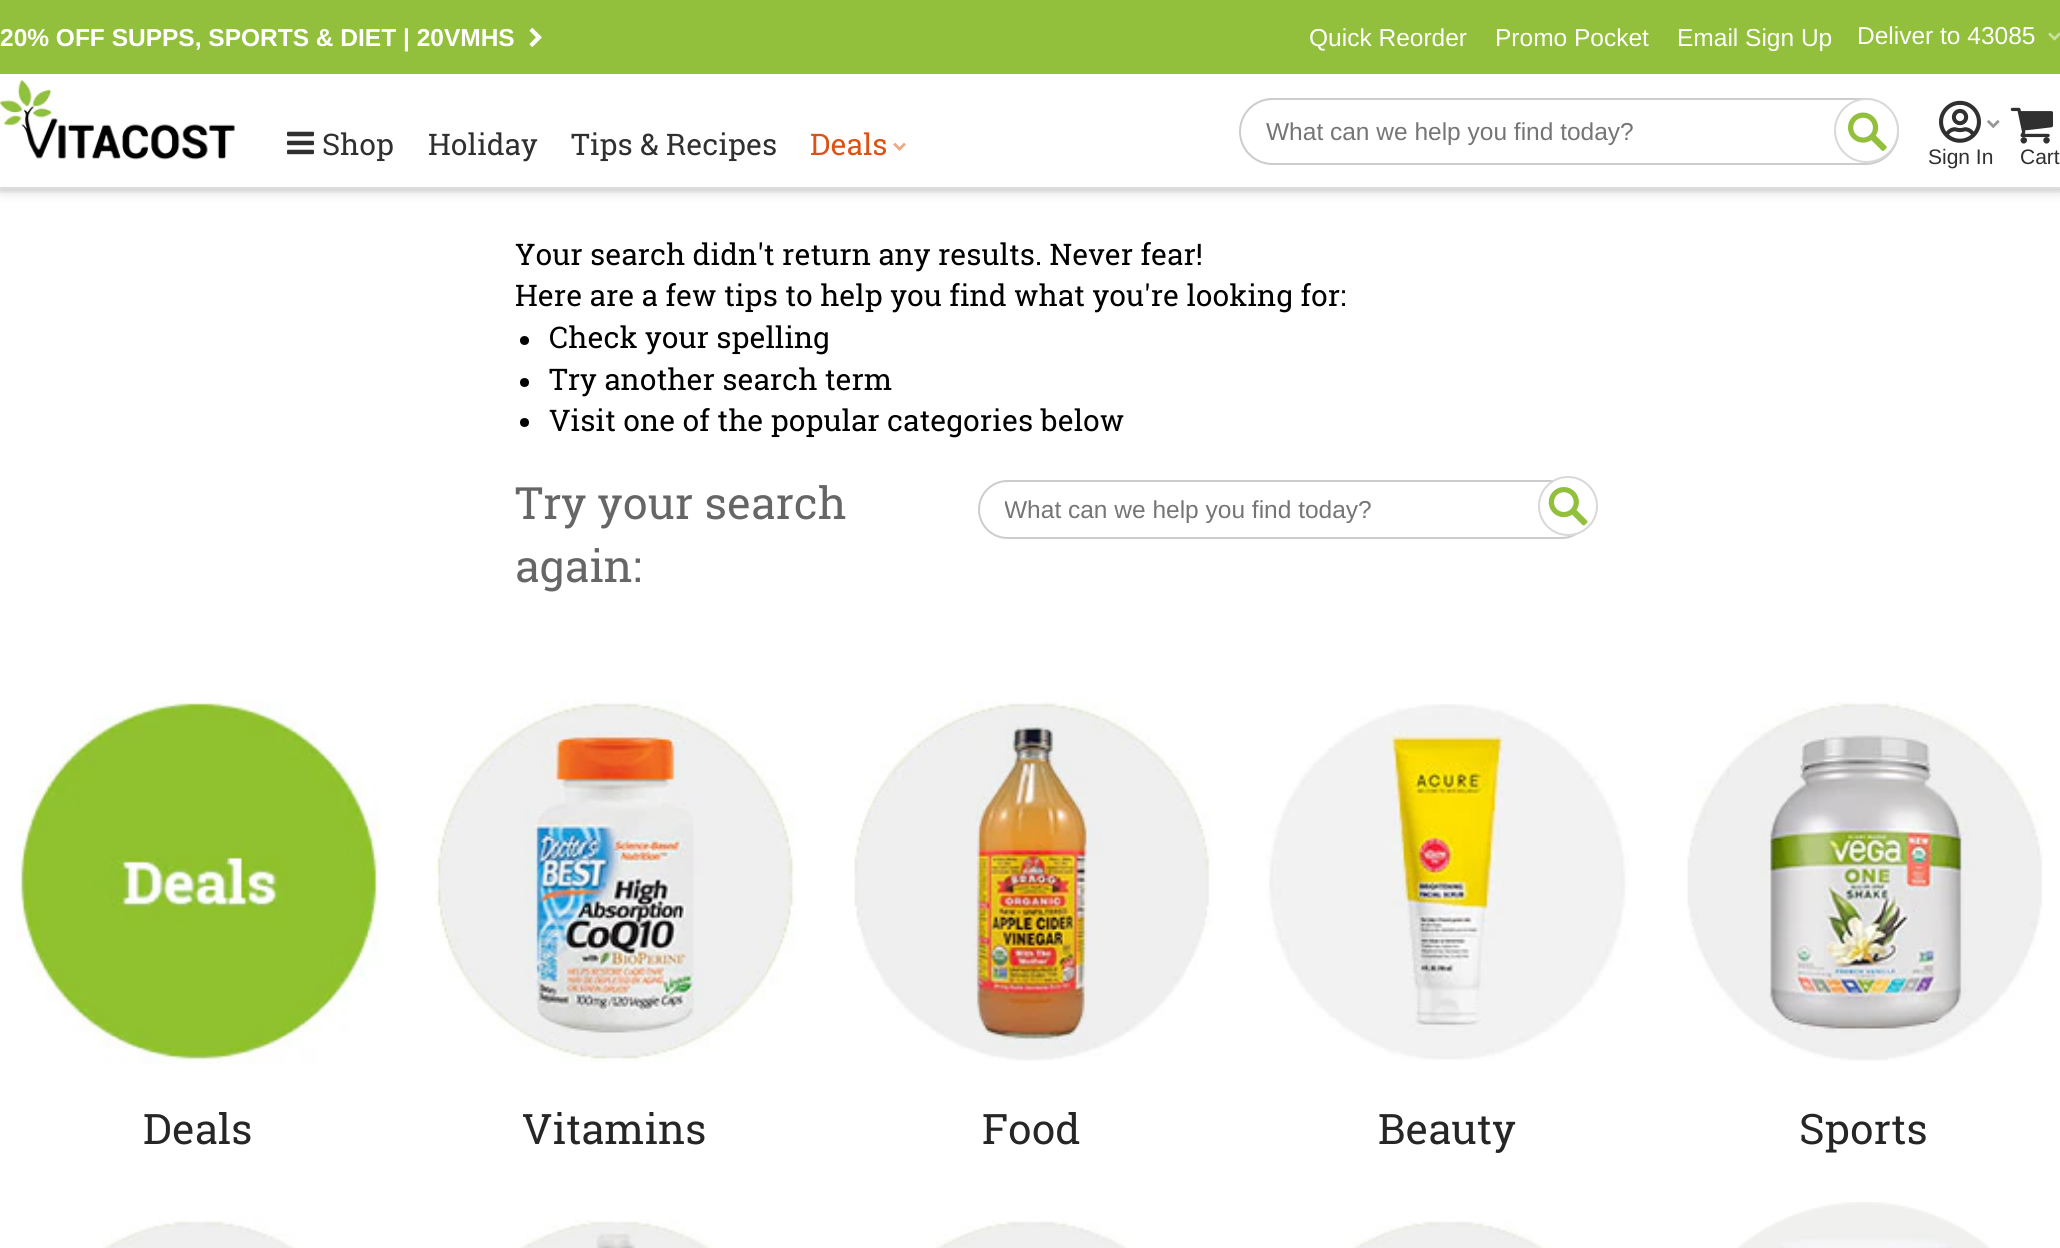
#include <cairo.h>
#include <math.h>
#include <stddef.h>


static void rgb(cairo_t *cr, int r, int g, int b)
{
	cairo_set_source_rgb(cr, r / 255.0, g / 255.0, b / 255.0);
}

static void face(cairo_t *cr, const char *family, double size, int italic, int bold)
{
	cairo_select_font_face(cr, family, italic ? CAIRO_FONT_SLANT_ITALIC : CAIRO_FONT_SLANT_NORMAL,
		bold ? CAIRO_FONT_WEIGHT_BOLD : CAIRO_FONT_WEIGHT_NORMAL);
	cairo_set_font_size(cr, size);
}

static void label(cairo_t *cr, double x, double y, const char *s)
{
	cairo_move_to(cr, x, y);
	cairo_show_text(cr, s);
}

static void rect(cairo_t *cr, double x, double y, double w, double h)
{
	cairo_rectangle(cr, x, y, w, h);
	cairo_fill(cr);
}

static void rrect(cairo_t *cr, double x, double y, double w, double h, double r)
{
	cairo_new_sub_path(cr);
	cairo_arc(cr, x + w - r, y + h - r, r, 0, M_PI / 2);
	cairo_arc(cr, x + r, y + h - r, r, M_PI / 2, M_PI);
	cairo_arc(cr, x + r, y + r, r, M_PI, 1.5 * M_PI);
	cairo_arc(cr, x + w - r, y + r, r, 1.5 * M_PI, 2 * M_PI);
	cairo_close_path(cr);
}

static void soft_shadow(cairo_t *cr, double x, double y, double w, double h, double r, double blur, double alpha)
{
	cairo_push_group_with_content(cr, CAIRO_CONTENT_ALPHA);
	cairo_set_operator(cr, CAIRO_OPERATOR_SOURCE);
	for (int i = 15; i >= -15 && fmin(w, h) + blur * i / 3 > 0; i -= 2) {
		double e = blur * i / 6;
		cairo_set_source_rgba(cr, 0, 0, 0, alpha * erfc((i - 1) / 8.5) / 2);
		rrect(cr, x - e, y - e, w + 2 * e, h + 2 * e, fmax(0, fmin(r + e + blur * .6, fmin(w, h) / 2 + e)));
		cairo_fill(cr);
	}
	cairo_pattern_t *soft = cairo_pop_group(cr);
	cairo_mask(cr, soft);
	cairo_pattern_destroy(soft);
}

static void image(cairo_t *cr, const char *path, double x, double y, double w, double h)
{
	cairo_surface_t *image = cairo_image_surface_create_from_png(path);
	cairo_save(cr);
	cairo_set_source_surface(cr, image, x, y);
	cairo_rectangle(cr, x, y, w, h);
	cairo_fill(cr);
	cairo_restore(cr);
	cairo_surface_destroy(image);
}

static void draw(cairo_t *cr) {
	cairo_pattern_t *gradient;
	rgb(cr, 255, 255, 255);
	cairo_paint(cr);
	cairo_save(cr);
	cairo_rectangle(cr, 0, 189, 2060, 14);
	cairo_clip(cr);
	rgb(cr, 200, 200, 200);
	soft_shadow(cr, 0, 0, 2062, 189, 0, 7, 1);
	cairo_restore(cr);
	rgb(cr, 241, 241, 241);
	rect(cr, 0, 187, 2060, 2);
	rgb(cr, 146, 192, 60);
	rect(cr, 0, 0, 2060, 74);
	face(cr, "Liberation Sans", 24.5, 0, 1);
	rgb(cr, 255, 255, 255);
	label(cr, 0, 46, "20% OFF SUPPS, SPORTS & DIET | 20VMHS");
	image(cr, "image0.png", 529, 28, 13, 19);
	face(cr, "Liberation Sans", 24.5, 0, 0);
	label(cr, 1309, 46, "Quick Reorder");
	label(cr, 1495, 46, "Promo Pocket");
	label(cr, 1677, 46, "Email Sign Up");
	label(cr, 1857, 44, "Deliver to 43085");
	image(cr, "image1.png", 2048, 32, 12, 9);
	image(cr, "image2.png", 0, 80, 235, 80);
	image(cr, "image3.png", 287, 131, 27, 24);
	face(cr, "Roboto Slab", 29.75, 0, 0);
	rgb(cr, 48, 48, 48);
	label(cr, 322, 155, "Shop");
	label(cr, 428, 155, "Holiday");
	label(cr, 571, 155, "Tips & Recipes");
	rgb(cr, 220, 82, 21);
	label(cr, 810, 155, "Deals");
	image(cr, "image4.png", 893, 142, 13, 9);
	rrect(cr, 1240, 99, 658, 65, 32.5);
	rgb(cr, 204, 204, 204);
	cairo_stroke(cr);
	face(cr, "Liberation Sans", 24.5, 0, 0);
	rgb(cr, 117, 117, 117);
	label(cr, 1266, 140, "What can we help you find today?");
	rgb(cr, 255, 255, 255);
	cairo_new_path(cr);
	cairo_arc(cr, 1866.5, 130.5, 31.5, 0, 2 * M_PI);
	cairo_fill_preserve(cr);
	rgb(cr, 216, 216, 216);
	cairo_stroke(cr);
	image(cr, "image5.png", 1848, 112, 39, 39);
	image(cr, "image6.png", 1939, 100, 42, 43);
	image(cr, "image7.png", 1987, 120, 13, 8);
	face(cr, "Liberation Sans", 21, 0, 0);
	rgb(cr, 48, 48, 48);
	label(cr, 1928, 164, "Sign In");
	image(cr, "image8.png", 2010, 107, 43, 37);
	label(cr, 2020, 164, "Cart");
	gradient = cairo_pattern_create_linear(1031, 187, 1031, 196);
	cairo_pattern_add_color_stop_rgba(gradient, 0, 0, 0, 0, 0.1);
	cairo_pattern_add_color_stop_rgba(gradient, 0.35, 0, 0, 0, 0.05);
	cairo_pattern_add_color_stop_rgba(gradient, 1, 0, 0, 0, 0);
	cairo_set_source(cr, gradient);
	cairo_pattern_destroy(gradient);
	rect(cr, 0, 187, 2060, 6);
	face(cr, "Roboto Slab", 29.75, 0, 0);
	rgb(cr, 0, 0, 0);
	label(cr, 515, 265, "Your search didn't return any results. Never fear!");
	label(cr, 515, 306, "Here are a few tips to help you find what you're looking for:");
	cairo_new_path(cr);
	cairo_arc(cr, 524.5, 340.5, 4.5, 0, 2 * M_PI);
	cairo_fill(cr);
	label(cr, 549, 348, "Check your spelling");
	cairo_new_path(cr);
	cairo_arc(cr, 524.5, 382.5, 4.5, 0, 2 * M_PI);
	cairo_fill(cr);
	label(cr, 549, 390, "Try another search term");
	cairo_new_path(cr);
	cairo_arc(cr, 524.5, 422.5, 4.5, 0, 2 * M_PI);
	cairo_fill(cr);
	label(cr, 549, 431, "Visit one of the popular categories below");
	face(cr, "Roboto Slab", 44.5, 0, 0);
	rgb(cr, 102, 102, 102);
	label(cr, 515, 519, "Try your search");
	label(cr, 515, 582, "again:");
	rrect(cr, 979, 481, 611, 57, 28.5);
	rgb(cr, 204, 204, 204);
	cairo_stroke(cr);
	rgb(cr, 255, 255, 255);
	cairo_arc(cr, 1568, 506, 29, 0, 2 * M_PI);
	cairo_fill_preserve(cr);
	rgb(cr, 216, 216, 216);
	cairo_stroke(cr);
	cairo_save(cr);
	cairo_rectangle(cr, 1005, 495, 574, 28);
	cairo_clip(cr);
	face(cr, "Liberation Sans", 24.5, 0, 0);
	rgb(cr, 117, 117, 117);
	label(cr, 1004, 518, "What can we help you find today?");
	cairo_restore(cr);
	image(cr, "image9.png", 1548, 487, 40, 39);
	image(cr, "image10.png", 16, 700, 365, 364);
	face(cr, "Roboto Slab", 42, 0, 0);
	rgb(cr, 38, 38, 38);
	label(cr, 143, 1144, "Deals");
	image(cr, "image11.png", 433, 700, 363, 362);
	label(cr, 522, 1144, "Vitamins");
	image(cr, "image12.png", 854, 700, 359, 361);
	label(cr, 982, 1144, "Food");
	image(cr, "image13.png", 1266, 704, 363, 356);
	label(cr, 1378, 1144, "Beauty");
	image(cr, "image14.png", 1687, 702, 356, 359);
	label(cr, 1799, 1144, "Sports");
	image(cr, "image15.png", 102, 1218, 196, 30);
	image(cr, "image16.png", 519, 1219, 197, 29);
	image(cr, "image17.png", 935, 1221, 192, 27);
	image(cr, "image18.png", 1352, 1221, 197, 27);
	image(cr, "image19.png", 1737, 1202, 253, 46);
}

int main(void) {
	cairo_surface_t *surface = cairo_image_surface_create(CAIRO_FORMAT_RGB24, 2060, 1248);
	cairo_t *cr = cairo_create(surface);
	cairo_font_options_t *options = cairo_font_options_create();
	cairo_font_options_set_hint_metrics(options, CAIRO_HINT_METRICS_OFF);
	cairo_font_options_set_hint_style(options, CAIRO_HINT_STYLE_NONE);
	cairo_set_font_options(cr, options);
	cairo_set_miter_limit(cr, 4);
	draw(cr);
	cairo_surface_write_to_png(surface, "render.png");
	cairo_font_options_destroy(options);
	cairo_destroy(cr);
	cairo_surface_destroy(surface);
	return 0;
}
